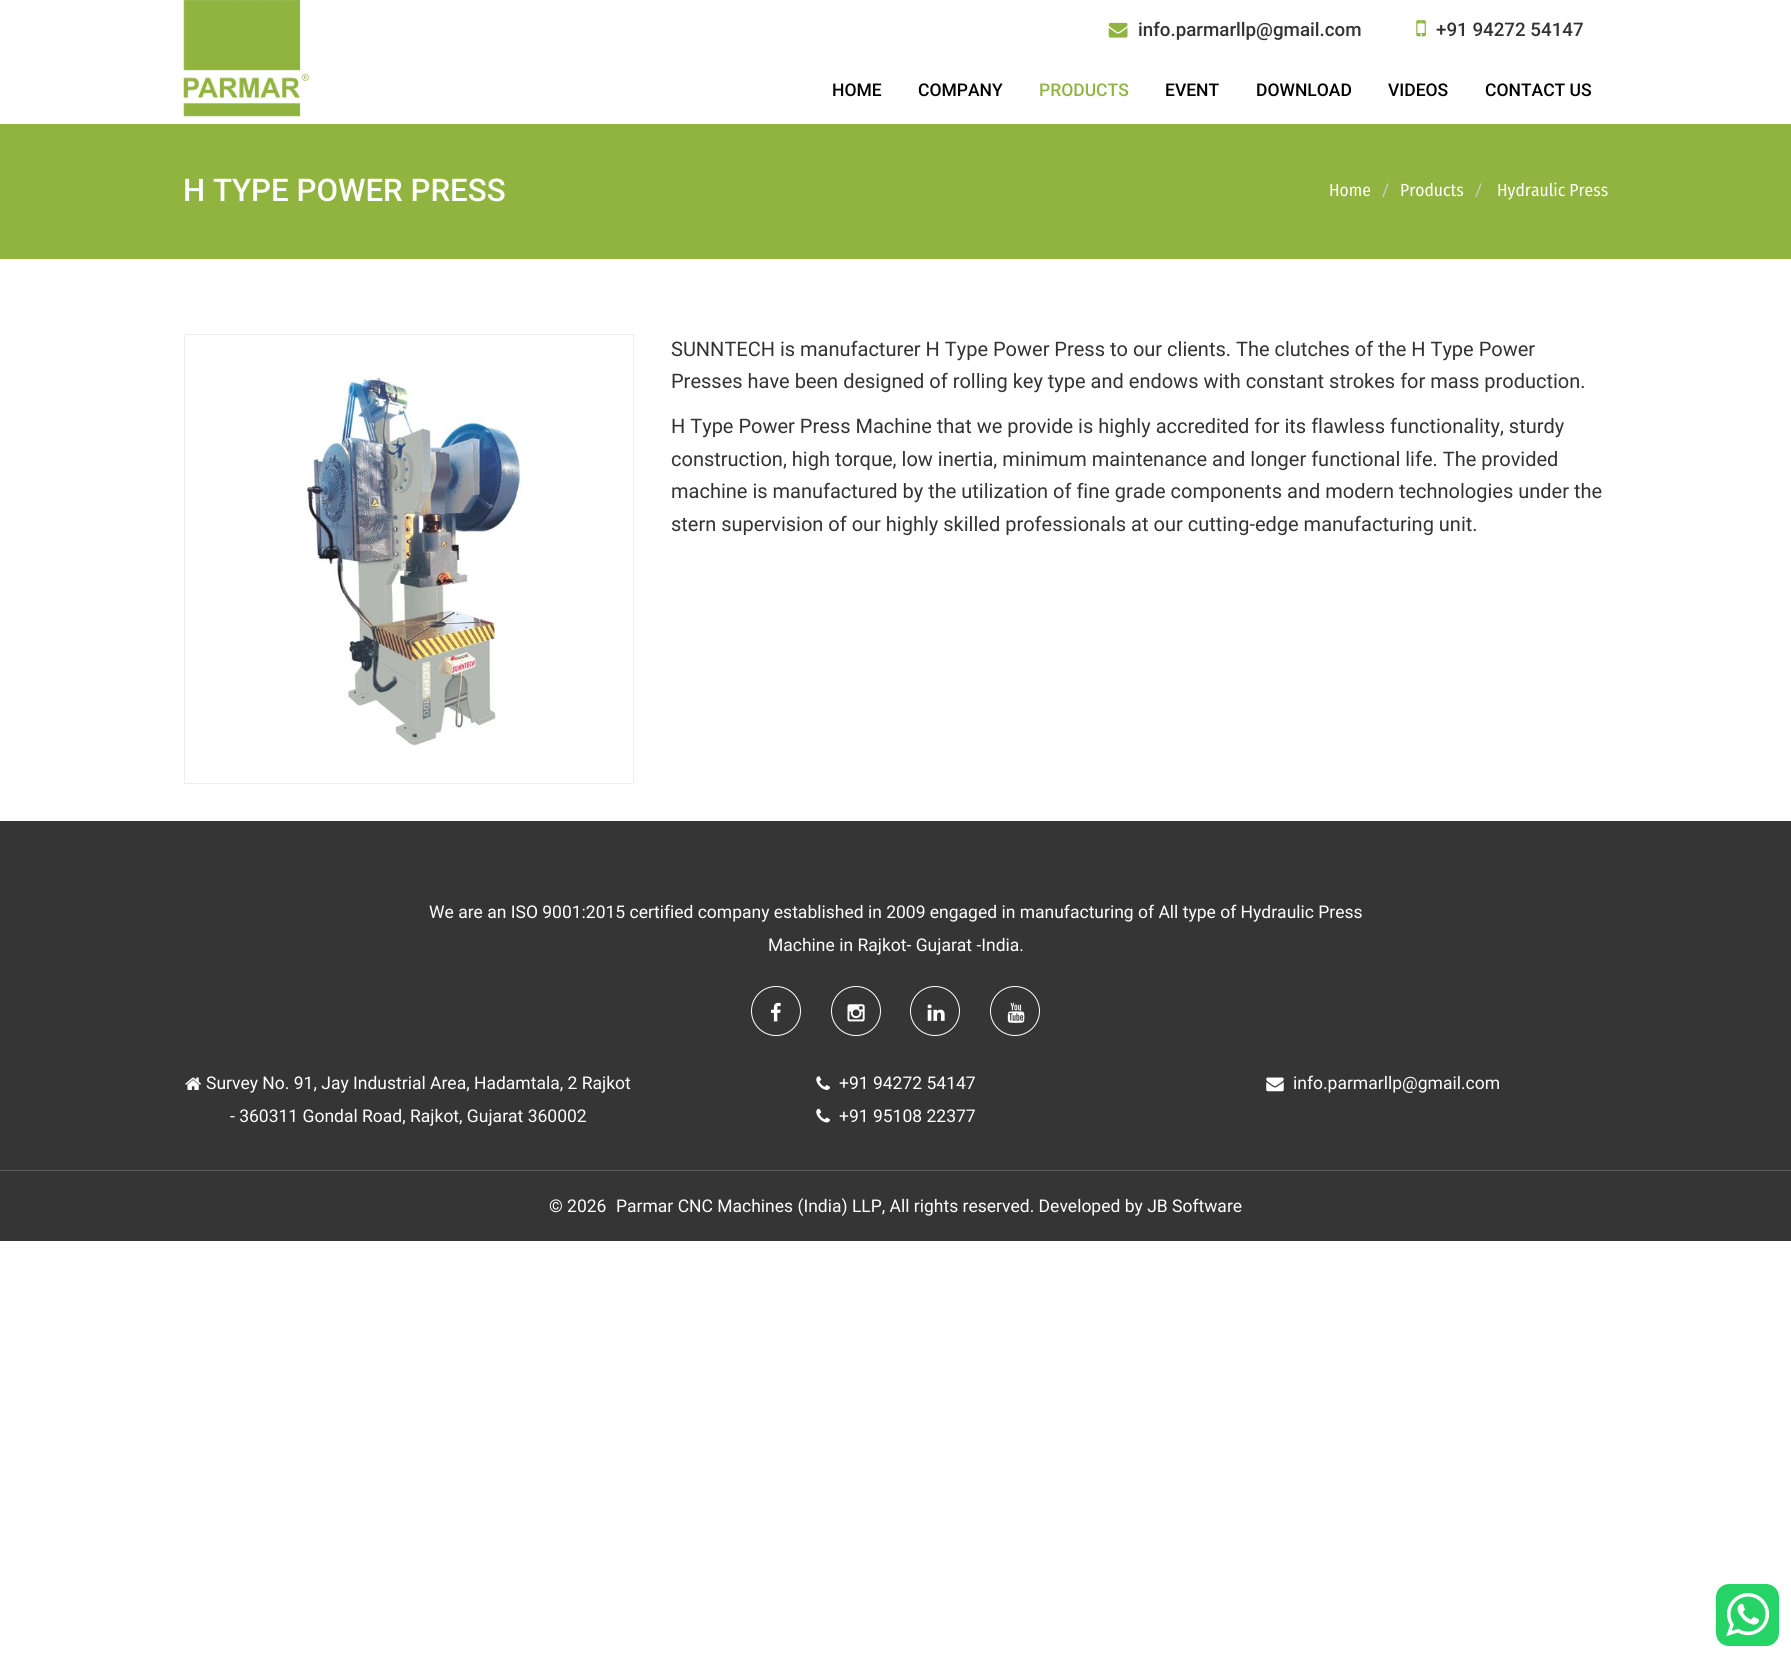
#include <cairo.h>
#include <math.h>
#include <stddef.h>


static void rgb(cairo_t *cr, int r, int g, int b)
{
	cairo_set_source_rgb(cr, r / 255.0, g / 255.0, b / 255.0);
}

static void face(cairo_t *cr, const char *family, double size, int italic, int bold)
{
	cairo_select_font_face(cr, family, italic ? CAIRO_FONT_SLANT_ITALIC : CAIRO_FONT_SLANT_NORMAL,
		bold ? CAIRO_FONT_WEIGHT_BOLD : CAIRO_FONT_WEIGHT_NORMAL);
	cairo_set_font_size(cr, size);
}

static void label(cairo_t *cr, double x, double y, const char *s)
{
	cairo_move_to(cr, x, y);
	cairo_show_text(cr, s);
}

static void rect(cairo_t *cr, double x, double y, double w, double h)
{
	cairo_rectangle(cr, x, y, w, h);
	cairo_fill(cr);
}

static void rrect(cairo_t *cr, double x, double y, double w, double h, double r)
{
	cairo_new_sub_path(cr);
	cairo_arc(cr, x + w - r, y + h - r, r, 0, M_PI / 2);
	cairo_arc(cr, x + r, y + h - r, r, M_PI / 2, M_PI);
	cairo_arc(cr, x + r, y + r, r, M_PI, 1.5 * M_PI);
	cairo_arc(cr, x + w - r, y + r, r, 1.5 * M_PI, 2 * M_PI);
	cairo_close_path(cr);
}

static void image(cairo_t *cr, const char *path, double x, double y, double w, double h)
{
	cairo_surface_t *image = cairo_image_surface_create_from_png(path);
	cairo_save(cr);
	cairo_set_source_surface(cr, image, x, y);
	cairo_rectangle(cr, x, y, w, h);
	cairo_fill(cr);
	cairo_restore(cr);
	cairo_surface_destroy(image);
}

static void draw(cairo_t *cr) {
	rgb(cr, 255, 255, 255);
	cairo_paint(cr);
	image(cr, "image0.png", 183, 0, 126, 117);
	image(cr, "image1.png", 1108, 22, 20, 16);
	face(cr, "Roboto Medium", 18.75, 0, 0);
	rgb(cr, 51, 51, 51);
	label(cr, 1138, 36, "info.parmarllp@gmail.com");
	image(cr, "image2.png", 1416, 20, 10, 17);
	label(cr, 1436, 36, "+91 94272 54147");
	face(cr, "Roboto Medium", 17.5, 0, 0);
	rgb(cr, 0, 0, 0);
	label(cr, 832, 96, "HOME");
	label(cr, 918, 96, "COMPANY");
	rgb(cr, 144, 180, 63);
	label(cr, 1039, 96, "PRODUCTS");
	rgb(cr, 0, 0, 0);
	label(cr, 1165, 96, "EVENT");
	label(cr, 1256, 96, "DOWNLOAD");
	label(cr, 1388, 96, "VIDEOS");
	label(cr, 1485, 96, "CONTACT US");
	rgb(cr, 144, 180, 63);
	rect(cr, 0, 124, 1791, 135);
	face(cr, "Roboto Medium", 31.25, 0, 0);
	rgb(cr, 255, 255, 255);
	label(cr, 183, 201, "H TYPE POWER PRESS");
	face(cr, "Fira Sans Condensed", 17.5, 0, 0);
	label(cr, 1329, 196, "Home");
	face(cr, "Roboto", 17.5, 0, 0);
	rgb(cr, 204, 204, 204);
	label(cr, 1382, 196, "/");
	face(cr, "Fira Sans Condensed", 17.5, 0, 0);
	rgb(cr, 255, 255, 255);
	label(cr, 1400, 196, "Products");
	face(cr, "Roboto", 17.5, 0, 0);
	rgb(cr, 204, 204, 204);
	label(cr, 1475, 196, "/");
	face(cr, "Fira Sans Condensed", 17.5, 0, 0);
	rgb(cr, 255, 255, 255);
	label(cr, 1497, 196, "Hydraulic Press");
	cairo_rectangle(cr, 184.5, 334.5, 449, 449);
	rgb(cr, 238, 238, 238);
	cairo_set_line_width(cr, 1);
	cairo_stroke(cr);
	image(cr, "image3.png", 304, 374, 220, 373);
	face(cr, "Roboto", 20, 0, 0);
	rgb(cr, 51, 51, 51);
	label(cr, 671, 356, "SUNNTECH is manufacturer H Type Power Press to our clients. The clutches of the H Type Power");
	label(cr, 671, 388, "Presses have been designed of rolling key type and endows with constant strokes for mass production.");
	label(cr, 671, 433, "H Type Power Press Machine that we provide is highly accredited for its flawless functionality, sturdy");
	label(cr, 671, 466, "construction, high torque, low inertia, minimum maintenance and longer functional life. The provided");
	label(cr, 671, 498, "machine is manufactured by the utilization of fine grade components and modern technologies under the");
	label(cr, 671, 531, "stern supervision of our highly skilled professionals at our cutting-edge manufacturing unit.");
	rgb(cr, 53, 53, 53);
	rect(cr, 0, 821, 1791, 420);
	face(cr, "Roboto", 17.5, 0, 0);
	rgb(cr, 255, 255, 255);
	label(cr, 429, 918, "We are an ISO 9001:2015 certified company established in 2009 engaged in manufacturing of All type of Hydraulic Press");
	label(cr, 768, 951, "Machine in Rajkot- Gujarat -India.");
	cairo_new_path(cr);
	cairo_arc(cr, 776, 1011, 24.5, 0, 2 * M_PI);
	cairo_stroke(cr);
	image(cr, "image4.png", 771, 1002, 10, 20);
	cairo_arc(cr, 856, 1011, 24.5, 0, 2 * M_PI);
	cairo_stroke(cr);
	image(cr, "image5.png", 847, 1004, 18, 18);
	cairo_arc(cr, 935, 1011, 24.5, 0, 2 * M_PI);
	cairo_stroke(cr);
	image(cr, "image6.png", 927, 1004, 18, 17);
	cairo_arc(cr, 1015, 1011, 24.5, 0, 2 * M_PI);
	cairo_stroke(cr);
	image(cr, "image7.png", 1007, 1002, 18, 21);
	image(cr, "image8.png", 185, 1077, 16, 13);
	label(cr, 206, 1089, "Survey No. 91, Jay Industrial Area, Hadamtala, 2 Rajkot");
	label(cr, 230, 1122, "- 360311 Gondal Road, Rajkot, Gujarat 360002");
	image(cr, "image9.png", 816, 1076, 14, 14);
	label(cr, 839, 1089, "+91 94272 54147");
	image(cr, "image10.png", 816, 1108, 14, 15);
	label(cr, 839, 1122, "+91 95108 22377");
	image(cr, "image11.png", 1266, 1077, 18, 15);
	label(cr, 1293, 1089, "info.parmarllp@gmail.com");
	rgb(cr, 94, 94, 94);
	rect(cr, 0, 1170, 1791, 1);
	rgb(cr, 255, 255, 255);
	label(cr, 549, 1212, "© 2026");
	label(cr, 616, 1212, "Parmar CNC Machines (India) LLP, All rights reserved. Developed by JB Software");
	rgb(cr, 37, 211, 102);
	rrect(cr, 1716, 1584, 63, 62, 13);
	cairo_fill(cr);
	image(cr, "image12.png", 1726, 1593, 44, 44);
}

int main(void) {
	cairo_surface_t *surface = cairo_image_surface_create(CAIRO_FORMAT_RGB24, 1791, 1658);
	cairo_t *cr = cairo_create(surface);
	cairo_font_options_t *options = cairo_font_options_create();
	cairo_font_options_set_hint_metrics(options, CAIRO_HINT_METRICS_OFF);
	cairo_font_options_set_hint_style(options, CAIRO_HINT_STYLE_NONE);
	cairo_set_font_options(cr, options);
	cairo_set_miter_limit(cr, 4);
	draw(cr);
	cairo_surface_write_to_png(surface, "render.png");
	cairo_font_options_destroy(options);
	cairo_destroy(cr);
	cairo_surface_destroy(surface);
	return 0;
}
